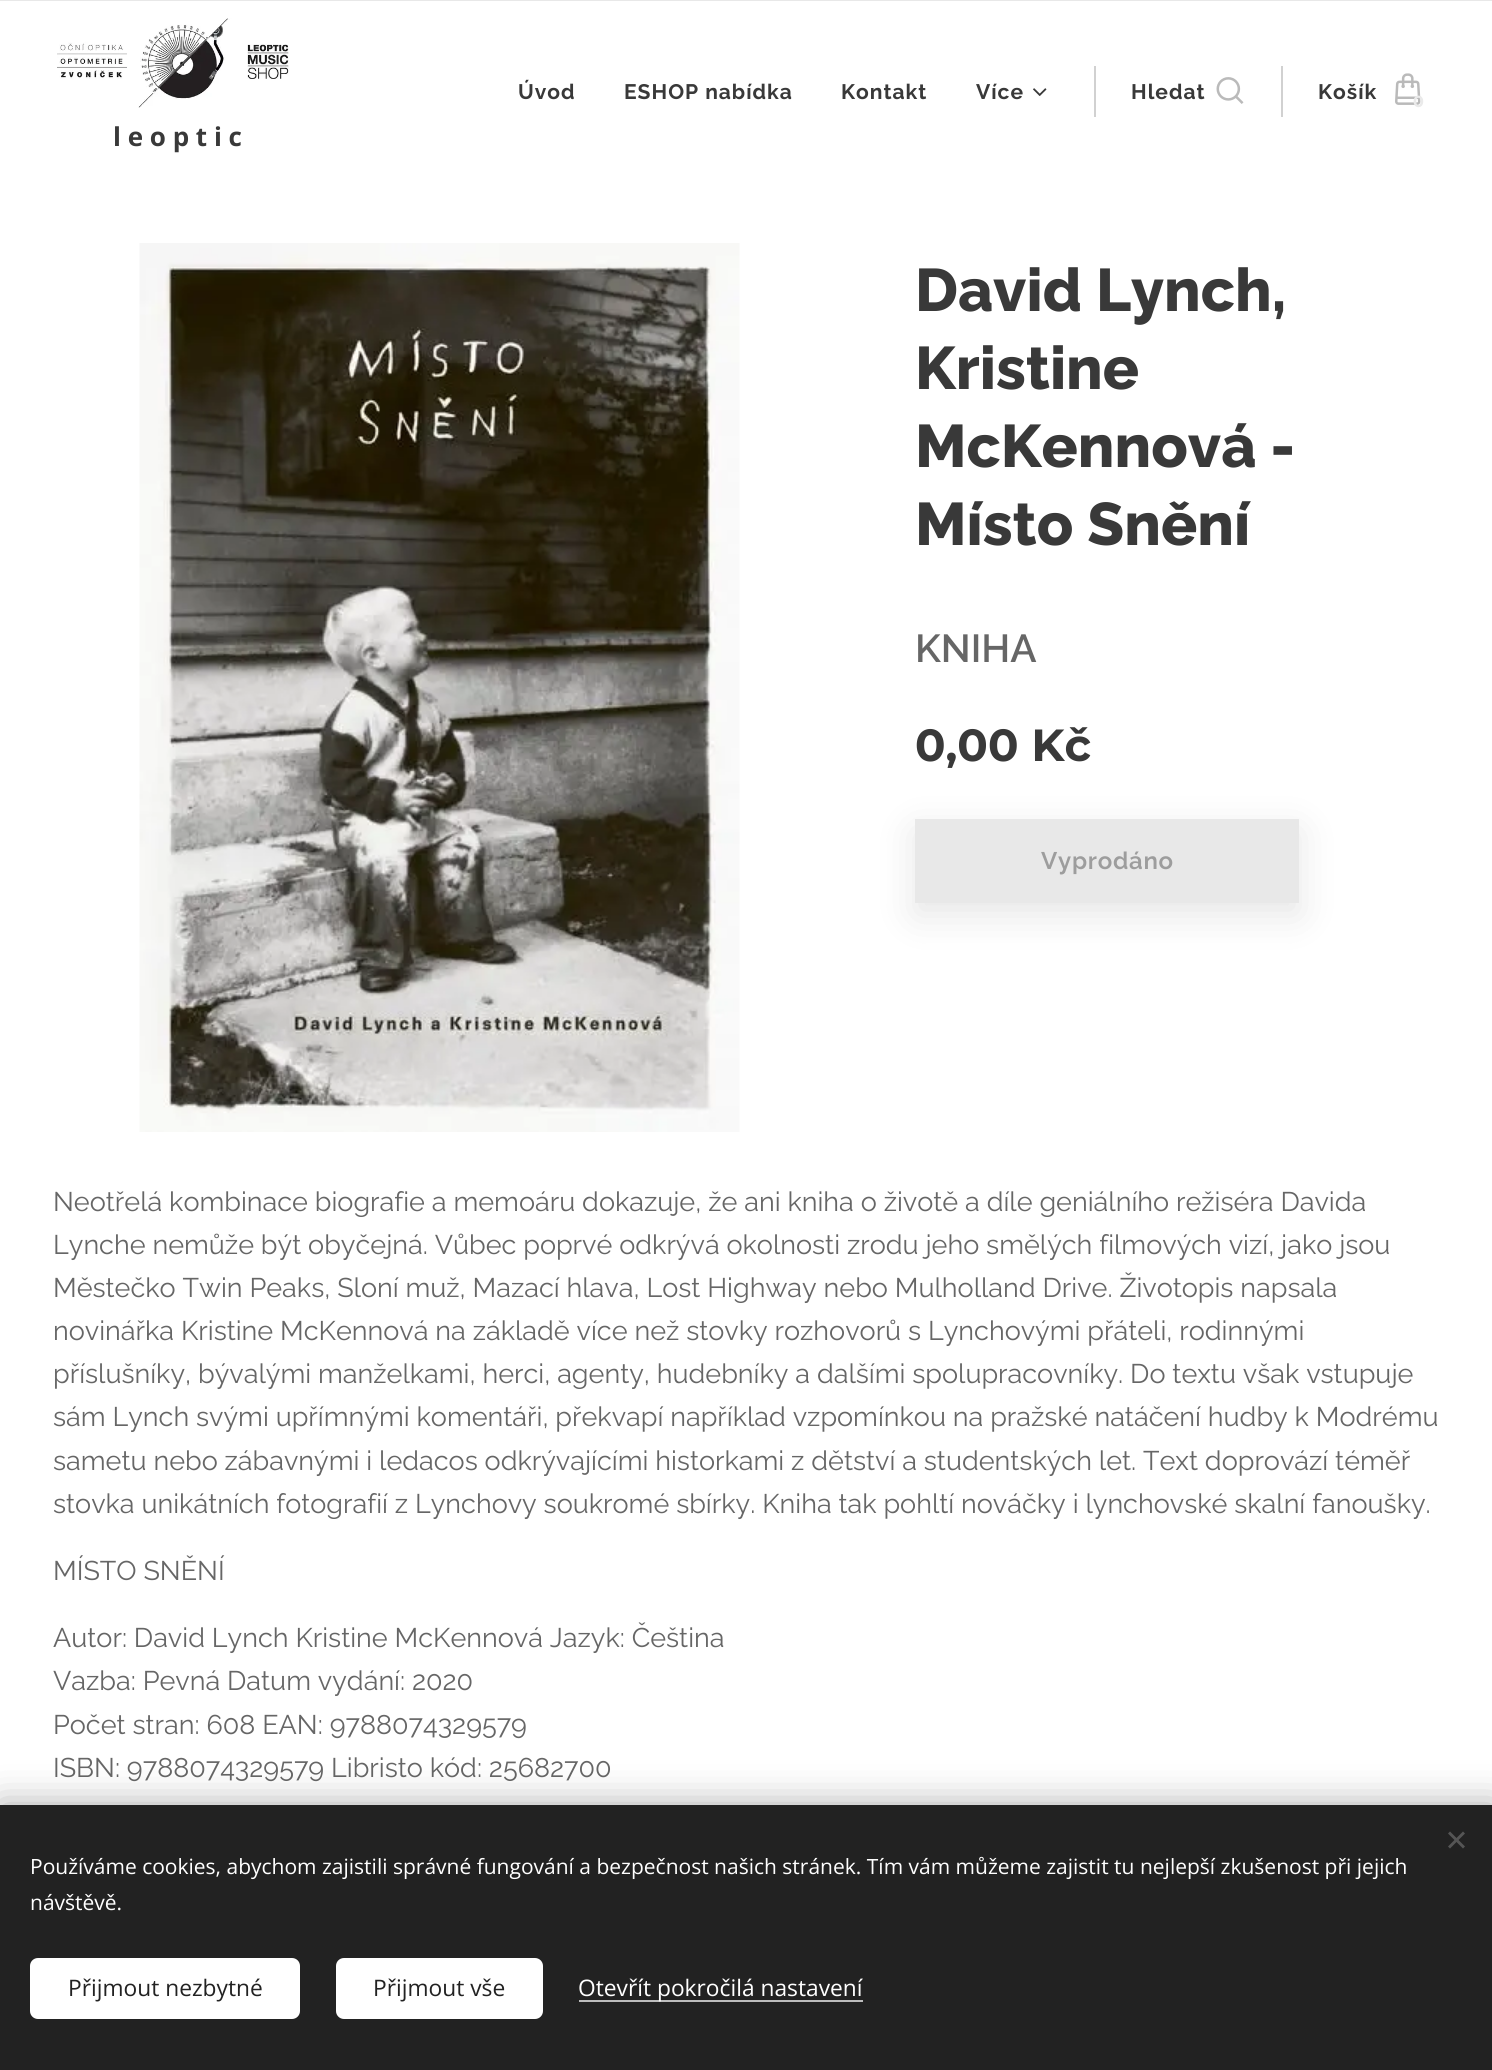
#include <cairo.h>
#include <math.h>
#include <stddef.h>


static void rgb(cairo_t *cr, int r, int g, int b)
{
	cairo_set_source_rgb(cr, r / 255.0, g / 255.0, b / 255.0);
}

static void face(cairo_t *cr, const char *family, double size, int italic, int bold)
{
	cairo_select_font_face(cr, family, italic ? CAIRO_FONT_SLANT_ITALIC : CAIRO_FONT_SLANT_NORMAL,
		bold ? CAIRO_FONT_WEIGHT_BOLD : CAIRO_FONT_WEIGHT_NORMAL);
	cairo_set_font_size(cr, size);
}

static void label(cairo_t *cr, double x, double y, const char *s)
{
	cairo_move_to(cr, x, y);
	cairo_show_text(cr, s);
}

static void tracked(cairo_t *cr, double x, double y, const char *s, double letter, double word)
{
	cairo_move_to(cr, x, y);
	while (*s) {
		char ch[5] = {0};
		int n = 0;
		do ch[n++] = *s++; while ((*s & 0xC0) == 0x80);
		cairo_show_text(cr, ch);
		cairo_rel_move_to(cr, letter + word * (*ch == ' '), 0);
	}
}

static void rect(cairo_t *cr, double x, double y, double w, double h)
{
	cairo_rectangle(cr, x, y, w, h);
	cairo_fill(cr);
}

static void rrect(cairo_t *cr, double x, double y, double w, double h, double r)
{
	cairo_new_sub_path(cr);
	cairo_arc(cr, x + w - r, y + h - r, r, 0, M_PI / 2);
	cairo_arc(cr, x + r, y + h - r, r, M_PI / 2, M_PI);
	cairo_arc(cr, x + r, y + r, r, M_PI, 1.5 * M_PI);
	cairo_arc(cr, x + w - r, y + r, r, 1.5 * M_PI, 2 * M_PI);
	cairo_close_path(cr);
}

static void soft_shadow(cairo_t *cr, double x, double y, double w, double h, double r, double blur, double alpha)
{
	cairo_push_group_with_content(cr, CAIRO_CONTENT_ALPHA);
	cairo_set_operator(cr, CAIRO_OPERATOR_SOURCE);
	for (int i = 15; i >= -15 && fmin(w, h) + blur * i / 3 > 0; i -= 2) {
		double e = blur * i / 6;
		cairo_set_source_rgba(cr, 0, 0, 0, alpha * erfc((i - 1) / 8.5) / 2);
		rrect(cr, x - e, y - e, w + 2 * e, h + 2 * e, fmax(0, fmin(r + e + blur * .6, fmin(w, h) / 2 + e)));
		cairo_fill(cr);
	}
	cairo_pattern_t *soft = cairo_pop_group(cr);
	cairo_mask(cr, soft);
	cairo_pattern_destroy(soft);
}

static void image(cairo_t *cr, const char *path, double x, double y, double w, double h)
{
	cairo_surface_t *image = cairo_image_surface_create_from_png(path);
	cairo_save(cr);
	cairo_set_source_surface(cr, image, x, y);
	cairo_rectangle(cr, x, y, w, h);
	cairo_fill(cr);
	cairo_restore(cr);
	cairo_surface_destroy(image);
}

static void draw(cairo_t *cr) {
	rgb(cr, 255, 255, 255);
	cairo_paint(cr);
	face(cr, "Raleway", 21, 0, 1);
	rgb(cr, 57, 57, 57);
	tracked(cr, 518, 99, "Úvod", 1, 0);
	tracked(cr, 624, 99, "ESHOP nabídka", 1, 0);
	tracked(cr, 841, 99, "Kontakt", 1, 0);
	tracked(cr, 976, 99, "Více", 1, 0);
	image(cr, "image0.png", 1033, 88, 14, 8);
	rgb(cr, 232, 232, 232);
	rect(cr, 0, 0, 1492, 1);
	rgb(cr, 209, 209, 209);
	rect(cr, 1094, 66, 2, 51);
	rgb(cr, 57, 57, 57);
	tracked(cr, 1131, 99, "Hledat", 1, 0);
	image(cr, "image1.png", 1216, 77, 28, 27);
	rgb(cr, 209, 209, 209);
	rect(cr, 1281, 66, 2, 51);
	rgb(cr, 57, 57, 57);
	tracked(cr, 1318, 99, "Košík", 1, 0);
	image(cr, "image2.png", 1395, 73, 26, 32);
	face(cr, "Montserrat", 16, 0, 1);
	rgb(cr, 234, 234, 234);
	label(cr, 1413, 107, "0");
	image(cr, "image3.png", 57, 18, 232, 90);
	face(cr, "Open Sans", 26, 0, 1);
	rgb(cr, 57, 57, 57);
	label(cr, 113, 146, "l e o p t i c");
	image(cr, "image4.png", 139, 243, 601, 889);
	face(cr, "Raleway ExtraBold", 60, 0, 0);
	label(cr, 915, 311, "David Lynch,");
	label(cr, 915, 389, "Kristine");
	label(cr, 915, 467, "McKennová -");
	label(cr, 915, 545, "Místo Snění");
	face(cr, "Raleway SemiBold", 39, 0, 0);
	rgb(cr, 102, 102, 102);
	label(cr, 915, 662, "KNIHA");
	face(cr, "Montserrat", 45, 0, 1);
	rgb(cr, 57, 57, 57);
	label(cr, 915, 761, "0,00 Kč");
	rgb(cr, 0, 0, 0);
	soft_shadow(cr, 915, 831, 384, 84, 0, 19, 0.1);
	rgb(cr, 232, 232, 232);
	rect(cr, 915, 819, 384, 84);
	face(cr, "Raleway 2 SemiBold", 24, 0, 0);
	rgb(cr, 157, 157, 157);
	tracked(cr, 1041, 869, "Vyprodáno", 0.75, 0);
	face(cr, "Raleway", 27, 0, 0);
	rgb(cr, 102, 102, 102);
	label(cr, 53, 1211, "Neotřelá kombinace biografie a memoáru dokazuje, že ani kniha o životě a díle geniálního režiséra Davida");
	label(cr, 53, 1254, "Lynche nemůže být obyčejná. Vůbec poprvé odkrývá okolnosti zrodu jeho smělých filmových vizí, jako jsou");
	label(cr, 53, 1297, "Městečko Twin Peaks, Sloní muž, Mazací hlava, Lost Highway nebo Mulholland Drive. Životopis napsala");
	label(cr, 53, 1340, "novinářka Kristine McKennová na základě více než stovky rozhovorů s Lynchovými přáteli, rodinnými");
	label(cr, 53, 1383, "příslušníky, bývalými manželkami, herci, agenty, hudebníky a dalšími spolupracovníky. Do textu však vstupuje");
	label(cr, 53, 1426, "sám Lynch svými upřímnými komentáři, překvapí například vzpomínkou na pražské natáčení hudby k Modrému");
	label(cr, 53, 1470, "sametu nebo zábavnými i ledacos odkrývajícími historkami z dětství a studentských let. Text doprovází téměř");
	label(cr, 53, 1513, "stovka unikátních fotografií z Lynchovy soukromé sbírky. Kniha tak pohltí nováčky i lynchovské skalní fanoušky.");
	label(cr, 53, 1580, "MÍSTO SNĚNÍ");
	label(cr, 53, 1647, "Autor: David Lynch Kristine McKennová Jazyk: Čeština");
	label(cr, 53, 1690, "Vazba: Pevná Datum vydání: 2020");
	label(cr, 53, 1734, "Počet stran: 608 EAN: 9788074329579");
	label(cr, 53, 1777, "ISBN: 9788074329579 Libristo kód: 25682700");
	rgb(cr, 0, 0, 0);
	soft_shadow(cr, 0, 1805, 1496, 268, 0, 19, 0.33);
	rgb(cr, 34, 34, 34);
	rect(cr, 0, 1805, 1492, 265);
	rgb(cr, 85, 85, 85);
	cairo_new_path(cr);
	cairo_move_to(cr, 1448, 1846.5);
	cairo_line_to(cr, 1463, 1831.5);
	cairo_line_to(cr, 1465, 1833.5);
	cairo_line_to(cr, 1450, 1848.5);
	cairo_close_path(cr);
	cairo_fill(cr);
	cairo_new_path(cr);
	cairo_move_to(cr, 1450, 1831.5);
	cairo_line_to(cr, 1465, 1846.5);
	cairo_line_to(cr, 1463, 1848.5);
	cairo_line_to(cr, 1448, 1833.5);
	cairo_close_path(cr);
	cairo_fill(cr);
	face(cr, "Open Sans", 21, 0, 0);
	rgb(cr, 255, 255, 255);
	label(cr, 30, 1874, "Používáme cookies, abychom zajistili správné fungování a bezpečnost našich stránek. Tím vám můžeme zajistit tu nejlepší zkušenost při jejich");
	label(cr, 30, 1910, "návštěvě.");
	rrect(cr, 30, 1958, 270, 61, 8);
	cairo_fill(cr);
	face(cr, "Open Sans", 22.75, 0, 0);
	rgb(cr, 34, 34, 34);
	label(cr, 68, 1996, "Přijmout nezbytné");
	rgb(cr, 255, 255, 255);
	rrect(cr, 336, 1958, 207, 61, 8);
	cairo_fill(cr);
	rgb(cr, 34, 34, 34);
	label(cr, 373, 1996, "Přijmout vše");
	rgb(cr, 189, 189, 189);
	rect(cr, 579, 2000, 284, 2);
	rgb(cr, 255, 255, 255);
	label(cr, 578, 1996, "Otevřít pokročilá nastavení");
}

int main(void) {
	cairo_surface_t *surface = cairo_image_surface_create(CAIRO_FORMAT_RGB24, 1492, 2070);
	cairo_t *cr = cairo_create(surface);
	cairo_font_options_t *options = cairo_font_options_create();
	cairo_font_options_set_hint_metrics(options, CAIRO_HINT_METRICS_OFF);
	cairo_font_options_set_hint_style(options, CAIRO_HINT_STYLE_NONE);
	cairo_set_font_options(cr, options);
	cairo_set_miter_limit(cr, 4);
	draw(cr);
	cairo_surface_write_to_png(surface, "render.png");
	cairo_font_options_destroy(options);
	cairo_destroy(cr);
	cairo_surface_destroy(surface);
	return 0;
}
